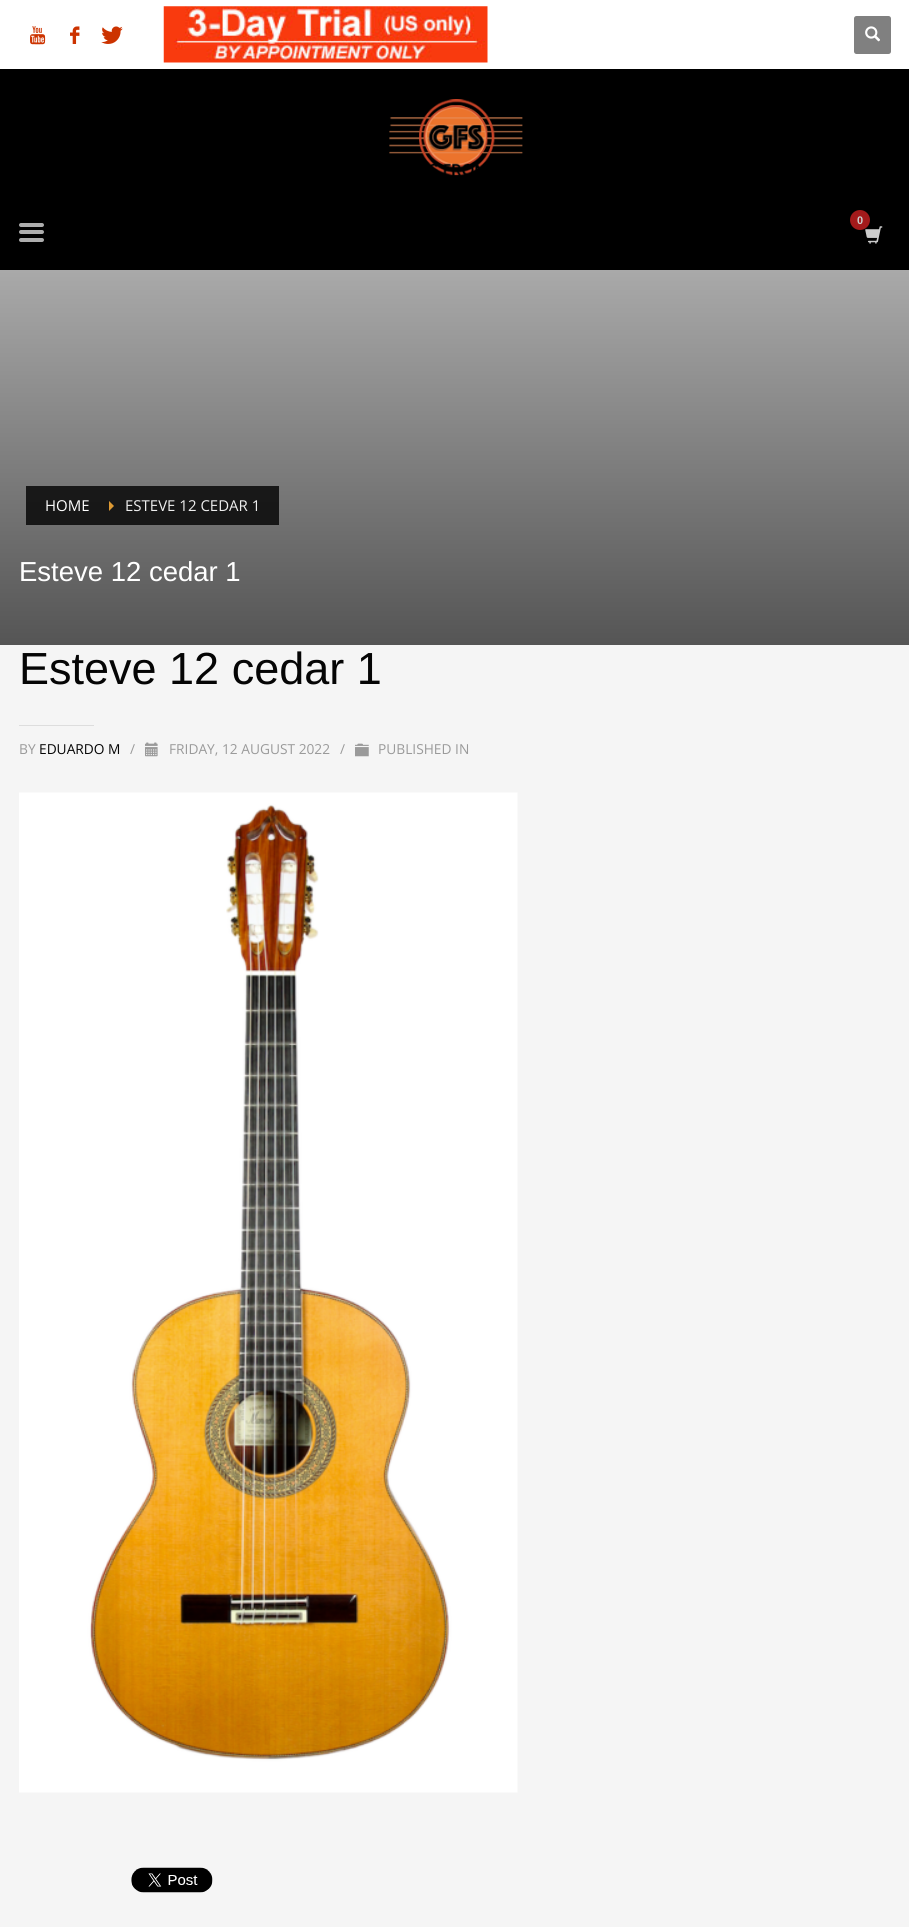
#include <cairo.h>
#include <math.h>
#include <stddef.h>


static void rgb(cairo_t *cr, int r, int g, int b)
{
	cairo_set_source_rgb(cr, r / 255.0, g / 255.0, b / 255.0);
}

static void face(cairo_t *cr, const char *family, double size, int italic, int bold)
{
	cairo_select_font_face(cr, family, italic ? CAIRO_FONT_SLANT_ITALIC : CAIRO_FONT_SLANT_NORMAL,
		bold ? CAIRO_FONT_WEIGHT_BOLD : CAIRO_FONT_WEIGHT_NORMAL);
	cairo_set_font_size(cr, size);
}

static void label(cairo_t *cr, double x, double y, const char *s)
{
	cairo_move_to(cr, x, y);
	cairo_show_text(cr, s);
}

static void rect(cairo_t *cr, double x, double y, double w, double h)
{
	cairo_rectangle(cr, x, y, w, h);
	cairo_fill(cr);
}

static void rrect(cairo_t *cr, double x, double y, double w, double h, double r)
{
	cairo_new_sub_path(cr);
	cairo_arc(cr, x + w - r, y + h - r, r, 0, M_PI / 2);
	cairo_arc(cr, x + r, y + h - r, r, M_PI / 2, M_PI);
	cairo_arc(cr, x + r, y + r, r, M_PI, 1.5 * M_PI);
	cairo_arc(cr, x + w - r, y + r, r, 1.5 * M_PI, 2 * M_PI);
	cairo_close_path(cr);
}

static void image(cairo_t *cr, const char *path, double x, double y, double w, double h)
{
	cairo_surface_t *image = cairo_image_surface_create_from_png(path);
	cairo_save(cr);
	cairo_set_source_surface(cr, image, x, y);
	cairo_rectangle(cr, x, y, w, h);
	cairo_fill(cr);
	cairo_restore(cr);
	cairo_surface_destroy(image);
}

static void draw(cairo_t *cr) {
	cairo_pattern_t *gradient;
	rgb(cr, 245, 245, 245);
	cairo_paint(cr);
	rgb(cr, 0, 0, 0);
	rect(cr, 0, 69, 909, 201);
	rgb(cr, 255, 255, 255);
	rect(cr, 0, 0, 909, 69);
	image(cr, "image0.png", 30, 26, 16, 19);
	image(cr, "image1.png", 70, 26, 10, 18);
	image(cr, "image2.png", 101, 26, 22, 18);
	image(cr, "image3.png", 163, 6, 325, 57);
	rgb(cr, 128, 128, 128);
	rrect(cr, 854, 16, 37, 38, 2.5);
	cairo_fill(cr);
	image(cr, "image4.png", 865, 26, 15, 16);
	image(cr, "image5.png", 389, 99, 134, 77);
	image(cr, "image6.png", 865, 226, 18, 18);
	rgb(cr, 164, 26, 27);
	cairo_arc(cr, 860, 220, 10, 0, 2 * M_PI);
	cairo_fill(cr);
	face(cr, "Liberation Sans", 11, 0, 1);
	rgb(cr, 204, 204, 204);
	label(cr, 857, 224, "0");
	rgb(cr, 173, 173, 173);
	rrect(cr, 19, 223, 25, 4, 2);
	cairo_fill(cr);
	rrect(cr, 19, 230, 25, 4, 2);
	cairo_fill(cr);
	rrect(cr, 19, 238, 25, 4, 2);
	cairo_fill(cr);
	gradient = cairo_pattern_create_linear(455, 270, 455, 645);
	cairo_pattern_add_color_stop_rgba(gradient, 0, 0.663, 0.663, 0.663, 1);
	cairo_pattern_add_color_stop_rgba(gradient, 1, 0.333, 0.333, 0.333, 1);
	cairo_set_source(cr, gradient);
	cairo_pattern_destroy(gradient);
	rect(cr, 0, 270, 909, 375);
	gradient = cairo_pattern_create_linear(455, 270, 455, 645);
	cairo_pattern_add_color_stop_rgba(gradient, 0, 0.133, 0.133, 0.133, 1);
	cairo_pattern_add_color_stop_rgba(gradient, 1, 0.067, 0.067, 0.067, 1);
	cairo_set_source(cr, gradient);
	cairo_pattern_destroy(gradient);
	rect(cr, 96, 486, 183, 39);
	rect(cr, 26, 486, 70, 39);
	face(cr, "Open Sans", 15, 0, 0);
	rgb(cr, 255, 255, 255);
	label(cr, 45, 511, "HOME");
	rgb(cr, 221, 153, 51);
	cairo_new_path(cr);
	cairo_move_to(cr, 109, 511);
	cairo_line_to(cr, 109, 501);
	cairo_line_to(cr, 114, 506);
	cairo_close_path(cr);
	cairo_fill(cr);
	rgb(cr, 238, 238, 238);
	label(cr, 125, 511, "ESTEVE 12 CEDAR 1");
	face(cr, "Liberation Sans", 27.5, 0, 0);
	rgb(cr, 255, 255, 255);
	label(cr, 19, 581, "Esteve 12 cedar 1");
	face(cr, "Liberation Sans", 45, 0, 0);
	rgb(cr, 5, 5, 5);
	label(cr, 19, 684, "Esteve 12 cedar 1");
	rgb(cr, 221, 221, 221);
	rect(cr, 19, 725, 75, 1);
	face(cr, "Open Sans", 13.75, 0, 0);
	rgb(cr, 154, 154, 154);
	label(cr, 19, 754, "BY");
	rgb(cr, 5, 5, 5);
	label(cr, 39, 754, "EDUARDO M");
	rgb(cr, 154, 154, 154);
	label(cr, 130, 754, "/");
	image(cr, "image7.png", 145, 742, 13, 15);
	label(cr, 169, 754, "FRIDAY, 12 AUGUST 2022");
	label(cr, 340, 754, "/");
	image(cr, "image8.png", 355, 743, 14, 14);
	label(cr, 378, 754, "PUBLISHED IN");
	image(cr, "image9.png", 19, 792, 499, 1001);
	image(cr, "image10.png", 131, 1867, 82, 26);
}

int main(void) {
	cairo_surface_t *surface = cairo_image_surface_create(CAIRO_FORMAT_RGB24, 909, 1927);
	cairo_t *cr = cairo_create(surface);
	cairo_font_options_t *options = cairo_font_options_create();
	cairo_font_options_set_hint_metrics(options, CAIRO_HINT_METRICS_OFF);
	cairo_font_options_set_hint_style(options, CAIRO_HINT_STYLE_NONE);
	cairo_set_font_options(cr, options);
	cairo_set_miter_limit(cr, 4);
	draw(cr);
	cairo_surface_write_to_png(surface, "render.png");
	cairo_font_options_destroy(options);
	cairo_destroy(cr);
	cairo_surface_destroy(surface);
	return 0;
}
